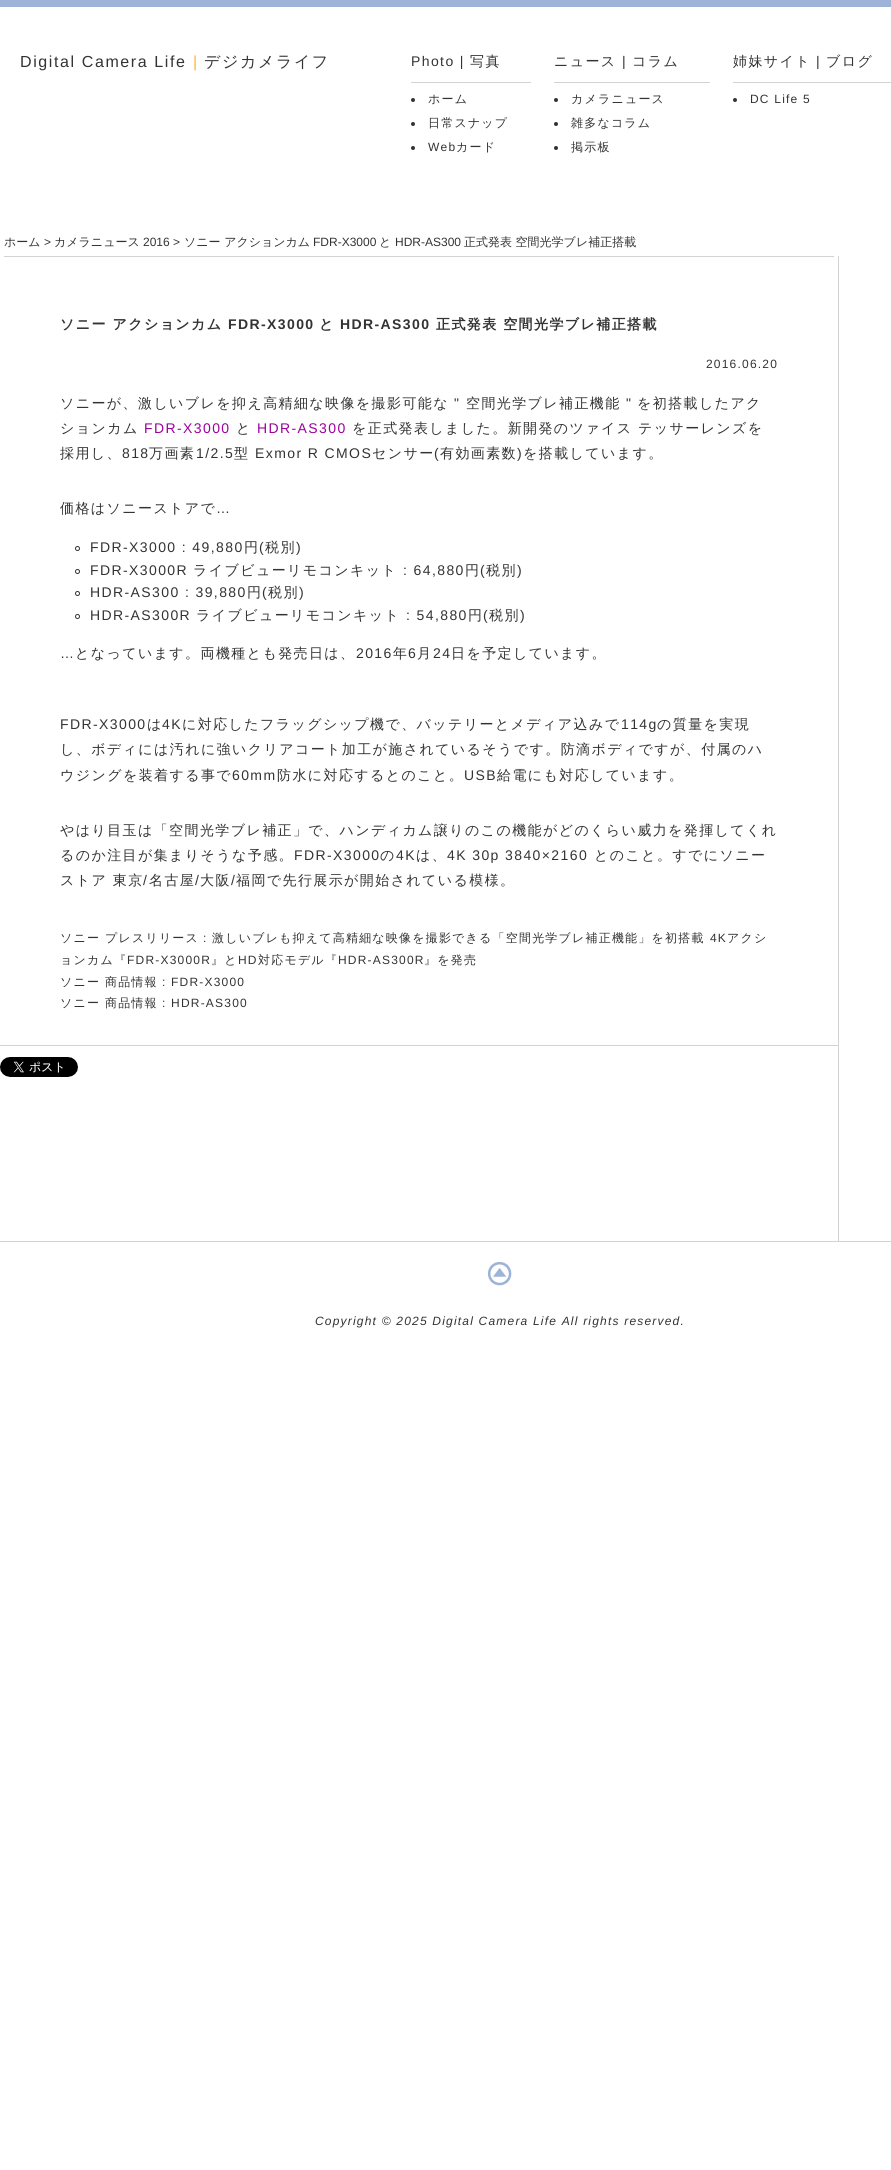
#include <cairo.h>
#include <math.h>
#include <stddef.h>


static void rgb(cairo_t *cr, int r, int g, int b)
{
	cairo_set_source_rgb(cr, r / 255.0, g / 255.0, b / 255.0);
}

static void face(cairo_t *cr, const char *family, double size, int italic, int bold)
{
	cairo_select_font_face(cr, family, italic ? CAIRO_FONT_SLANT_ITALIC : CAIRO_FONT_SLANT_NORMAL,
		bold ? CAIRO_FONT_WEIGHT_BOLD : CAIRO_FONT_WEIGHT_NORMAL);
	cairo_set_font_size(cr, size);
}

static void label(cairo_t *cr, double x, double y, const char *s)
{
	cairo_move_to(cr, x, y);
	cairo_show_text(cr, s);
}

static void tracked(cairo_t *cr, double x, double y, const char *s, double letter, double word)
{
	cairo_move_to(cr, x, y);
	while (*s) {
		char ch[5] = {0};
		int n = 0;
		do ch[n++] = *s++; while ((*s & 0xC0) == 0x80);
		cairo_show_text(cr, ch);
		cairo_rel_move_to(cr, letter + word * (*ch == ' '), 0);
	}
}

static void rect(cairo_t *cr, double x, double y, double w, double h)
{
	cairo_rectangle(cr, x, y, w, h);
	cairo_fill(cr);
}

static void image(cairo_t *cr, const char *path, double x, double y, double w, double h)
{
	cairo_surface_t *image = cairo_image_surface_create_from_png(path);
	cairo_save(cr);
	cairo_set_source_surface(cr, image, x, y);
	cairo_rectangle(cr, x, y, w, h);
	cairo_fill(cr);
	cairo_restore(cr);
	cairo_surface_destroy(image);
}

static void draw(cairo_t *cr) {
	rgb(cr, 255, 255, 255);
	cairo_paint(cr);
	rgb(cr, 157, 179, 216);
	rect(cr, 0, 0, 891, 7);
	face(cr, "Liberation Sans", 16, 0, 0);
	rgb(cr, 51, 51, 51);
	tracked(cr, 20, 67, "Digital Camera Life", 1.6, 0);
	rgb(cr, 255, 179, 64);
	tracked(cr, 193, 67, "|", 1.6, 0);
	face(cr, "WenQuanYi Zen Hei Medium", 16, 0, 0);
	rgb(cr, 51, 51, 51);
	tracked(cr, 204, 67, "デジカメライフ", 1.6, 0);
	rgb(cr, 211, 211, 213);
	rect(cr, 411, 82, 120, 1);
	face(cr, "Liberation Sans", 14, 0, 0);
	rgb(cr, 51, 51, 51);
	tracked(cr, 411, 66, "Photo |", 1.4, 0);
	face(cr, "WenQuanYi Zen Hei Medium", 14, 0, 0);
	tracked(cr, 470, 66, "写真", 1.4, 0);
	cairo_new_path(cr);
	cairo_arc(cr, 413, 100, 2, 0, 2 * M_PI);
	cairo_fill(cr);
	face(cr, "WenQuanYi Zen Hei Medium", 12, 0, 0);
	tracked(cr, 428, 103, "ホーム", 1.2, 0);
	cairo_new_path(cr);
	cairo_arc(cr, 413, 124, 2, 0, 2 * M_PI);
	cairo_fill(cr);
	tracked(cr, 428, 127, "日常スナップ", 1.2, 0);
	cairo_new_path(cr);
	cairo_arc(cr, 413, 148, 2, 0, 2 * M_PI);
	cairo_fill(cr);
	face(cr, "Liberation Sans", 12, 0, 0);
	tracked(cr, 428, 151, "Web", 1.2, 0);
	face(cr, "WenQuanYi Zen Hei Medium", 12, 0, 0);
	tracked(cr, 456, 151, "カード", 1.2, 0);
	rgb(cr, 211, 211, 213);
	rect(cr, 554, 82, 156, 1);
	face(cr, "WenQuanYi Zen Hei Medium", 14, 0, 0);
	rgb(cr, 51, 51, 51);
	tracked(cr, 554, 66, "ニュース", 1.4, 0);
	face(cr, "Liberation Sans", 14, 0, 0);
	tracked(cr, 622, 66, "|", 1.4, 0);
	face(cr, "WenQuanYi Zen Hei Medium", 14, 0, 0);
	tracked(cr, 632, 66, "コラム", 1.4, 0);
	cairo_new_path(cr);
	cairo_arc(cr, 556, 100, 2, 0, 2 * M_PI);
	cairo_fill(cr);
	face(cr, "WenQuanYi Zen Hei Medium", 12, 0, 0);
	tracked(cr, 571, 103, "カメラニュース", 1.2, 0);
	cairo_new_path(cr);
	cairo_arc(cr, 556, 124, 2, 0, 2 * M_PI);
	cairo_fill(cr);
	tracked(cr, 571, 127, "雑多なコラム", 1.2, 0);
	cairo_new_path(cr);
	cairo_arc(cr, 556, 148, 2, 0, 2 * M_PI);
	cairo_fill(cr);
	tracked(cr, 571, 151, "掲示板", 1.2, 0);
	rgb(cr, 211, 211, 213);
	rect(cr, 733, 82, 158, 1);
	face(cr, "WenQuanYi Zen Hei Medium", 14, 0, 0);
	rgb(cr, 51, 51, 51);
	tracked(cr, 733, 66, "姉妹サイト", 1.4, 0);
	face(cr, "Liberation Sans", 14, 0, 0);
	tracked(cr, 816, 66, "|", 1.4, 0);
	face(cr, "WenQuanYi Zen Hei Medium", 14, 0, 0);
	tracked(cr, 826, 66, "ブログ", 1.4, 0);
	cairo_new_path(cr);
	cairo_arc(cr, 735, 100, 2, 0, 2 * M_PI);
	cairo_fill(cr);
	face(cr, "Liberation Sans", 12, 0, 0);
	tracked(cr, 750, 103, "DC Life 5", 1.2, 0);
	rgb(cr, 211, 211, 213);
	rect(cr, 0, 1241, 891, 1);
	face(cr, "WenQuanYi Zen Hei Medium", 12, 0, 0);
	rgb(cr, 51, 51, 51);
	label(cr, 4, 246, "ホーム");
	face(cr, "Liberation Sans", 12, 0, 0);
	label(cr, 44, 246, ">");
	face(cr, "WenQuanYi Zen Hei Medium", 12, 0, 0);
	label(cr, 54, 246, "カメラニュース");
	face(cr, "Liberation Sans", 12, 0, 0);
	label(cr, 143, 246, "2016 >");
	face(cr, "WenQuanYi Zen Hei Medium", 12, 0, 0);
	label(cr, 184, 246, "ソニー アクションカム");
	face(cr, "Liberation Sans", 12, 0, 0);
	label(cr, 313, 246, "FDR-X3000");
	face(cr, "WenQuanYi Zen Hei Medium", 12, 0, 0);
	label(cr, 379, 246, "と");
	face(cr, "Liberation Sans", 12, 0, 0);
	label(cr, 395, 246, "HDR-AS300");
	face(cr, "WenQuanYi Zen Hei Medium", 12, 0, 0);
	label(cr, 464, 246, "正式発表 空間光学ブレ補正搭載");
	rgb(cr, 211, 211, 213);
	rect(cr, 4, 256, 830, 1);
	rect(cr, 838, 256, 1, 985);
	rect(cr, 0, 1045, 838, 1);
	face(cr, "WenQuanYi Zen Hei", 14, 0, 1);
	rgb(cr, 51, 51, 51);
	tracked(cr, 60, 329, "ソニー アクションカム", 1.4, 0);
	face(cr, "Liberation Sans", 14, 0, 1);
	tracked(cr, 228, 329, "FDR-X3000", 1.4, 0);
	face(cr, "WenQuanYi Zen Hei", 14, 0, 1);
	tracked(cr, 319, 329, "と", 1.4, 0);
	face(cr, "Liberation Sans", 14, 0, 1);
	tracked(cr, 340, 329, "HDR-AS300", 1.4, 0);
	face(cr, "WenQuanYi Zen Hei", 14, 0, 1);
	tracked(cr, 436, 329, "正式発表 空間光学ブレ補正搭載", 1.4, 0);
	face(cr, "Liberation Sans", 12, 0, 0);
	tracked(cr, 706, 368, "2016.06.20", 1.2, 0);
	face(cr, "WenQuanYi Zen Hei Medium", 14, 0, 0);
	tracked(cr, 60, 408, "ソニーが、激しいブレを抑え高精細な映像を撮影可能な", 1.4, 0);
	face(cr, "Liberation Sans", 14, 0, 0);
	tracked(cr, 454, 408, "\"", 1.4, 0);
	face(cr, "WenQuanYi Zen Hei Medium", 14, 0, 0);
	tracked(cr, 466, 408, "空間光学ブレ補正機能", 1.4, 0);
	face(cr, "Liberation Sans", 14, 0, 0);
	tracked(cr, 626, 408, "\"", 1.4, 0);
	face(cr, "WenQuanYi Zen Hei Medium", 14, 0, 0);
	tracked(cr, 637, 408, "を初搭載したアク", 1.4, 0);
	tracked(cr, 60, 433, "ションカム", 1.4, 0);
	face(cr, "Liberation Sans", 14, 0, 0);
	rgb(cr, 157, 0, 157);
	tracked(cr, 144, 433, "FDR-X3000", 1.4, 0);
	face(cr, "WenQuanYi Zen Hei Medium", 14, 0, 0);
	rgb(cr, 51, 51, 51);
	tracked(cr, 236, 433, "と", 1.4, 0);
	face(cr, "Liberation Sans", 14, 0, 0);
	rgb(cr, 157, 0, 157);
	tracked(cr, 257, 433, "HDR-AS300", 1.4, 0);
	face(cr, "WenQuanYi Zen Hei Medium", 14, 0, 0);
	rgb(cr, 51, 51, 51);
	tracked(cr, 352, 433, "を正式発表しました。新開発のツァイス テッサーレンズを", 1.4, 0);
	tracked(cr, 60, 458, "採用し、", 1.4, 0);
	face(cr, "Liberation Sans", 14, 0, 0);
	tracked(cr, 122, 458, "818", 1.4, 0);
	face(cr, "WenQuanYi Zen Hei Medium", 14, 0, 0);
	tracked(cr, 149, 458, "万画素", 1.4, 0);
	face(cr, "Liberation Sans", 14, 0, 0);
	tracked(cr, 196, 458, "1/2.5", 1.4, 0);
	face(cr, "WenQuanYi Zen Hei Medium", 14, 0, 0);
	tracked(cr, 234, 458, "型", 1.4, 0);
	face(cr, "Liberation Sans", 14, 0, 0);
	tracked(cr, 255, 458, "Exmor R CMOS", 1.4, 0);
	face(cr, "WenQuanYi Zen Hei Medium", 14, 0, 0);
	tracked(cr, 372, 458, "センサー", 1.4, 0);
	face(cr, "Liberation Sans", 14, 0, 0);
	tracked(cr, 434, 458, "(", 1.4, 0);
	face(cr, "WenQuanYi Zen Hei Medium", 14, 0, 0);
	tracked(cr, 440, 458, "有効画素数", 1.4, 0);
	face(cr, "Liberation Sans", 14, 0, 0);
	tracked(cr, 517, 458, ")", 1.4, 0);
	face(cr, "WenQuanYi Zen Hei Medium", 14, 0, 0);
	tracked(cr, 523, 458, "を搭載しています。", 1.4, 0);
	tracked(cr, 60, 513, "価格はソニーストアで", 1.4, 0);
	face(cr, "Liberation Sans", 14, 0, 0);
	tracked(cr, 216, 513, "…", 1.4, 0);
	cairo_new_path(cr);
	cairo_arc(cr, 77.5, 548.5, 2, 0, 2 * M_PI);
	cairo_set_line_width(cr, 1);
	cairo_stroke(cr);
	tracked(cr, 90, 552, "FDR-X3000 : 49,880", 1.4, 0);
	face(cr, "WenQuanYi Zen Hei Medium", 14, 0, 0);
	tracked(cr, 244, 552, "円", 1.4, 0);
	face(cr, "Liberation Sans", 14, 0, 0);
	tracked(cr, 259, 552, "(", 1.4, 0);
	face(cr, "WenQuanYi Zen Hei Medium", 14, 0, 0);
	tracked(cr, 265, 552, "税別", 1.4, 0);
	face(cr, "Liberation Sans", 14, 0, 0);
	tracked(cr, 296, 552, ")", 1.4, 0);
	cairo_new_path(cr);
	cairo_arc(cr, 77.5, 571.5, 2, 0, 2 * M_PI);
	cairo_stroke(cr);
	tracked(cr, 90, 575, "FDR-X3000R", 1.4, 0);
	face(cr, "WenQuanYi Zen Hei Medium", 14, 0, 0);
	tracked(cr, 193, 575, "ライブビューリモコンキット", 1.4, 0);
	face(cr, "Liberation Sans", 14, 0, 0);
	tracked(cr, 403, 575, ": 64,880", 1.4, 0);
	face(cr, "WenQuanYi Zen Hei Medium", 14, 0, 0);
	tracked(cr, 465, 575, "円", 1.4, 0);
	face(cr, "Liberation Sans", 14, 0, 0);
	tracked(cr, 480, 575, "(", 1.4, 0);
	face(cr, "WenQuanYi Zen Hei Medium", 14, 0, 0);
	tracked(cr, 486, 575, "税別", 1.4, 0);
	face(cr, "Liberation Sans", 14, 0, 0);
	tracked(cr, 517, 575, ")", 1.4, 0);
	cairo_new_path(cr);
	cairo_arc(cr, 77.5, 593.5, 2, 0, 2 * M_PI);
	cairo_stroke(cr);
	tracked(cr, 90, 597, "HDR-AS300 : 39,880", 1.4, 0);
	face(cr, "WenQuanYi Zen Hei Medium", 14, 0, 0);
	tracked(cr, 247, 597, "円", 1.4, 0);
	face(cr, "Liberation Sans", 14, 0, 0);
	tracked(cr, 262, 597, "(", 1.4, 0);
	face(cr, "WenQuanYi Zen Hei Medium", 14, 0, 0);
	tracked(cr, 268, 597, "税別", 1.4, 0);
	face(cr, "Liberation Sans", 14, 0, 0);
	tracked(cr, 299, 597, ")", 1.4, 0);
	cairo_new_path(cr);
	cairo_arc(cr, 77.5, 616.5, 2, 0, 2 * M_PI);
	cairo_stroke(cr);
	tracked(cr, 90, 620, "HDR-AS300R", 1.4, 0);
	face(cr, "WenQuanYi Zen Hei Medium", 14, 0, 0);
	tracked(cr, 196, 620, "ライブビューリモコンキット", 1.4, 0);
	face(cr, "Liberation Sans", 14, 0, 0);
	tracked(cr, 406, 620, ": 54,880", 1.4, 0);
	face(cr, "WenQuanYi Zen Hei Medium", 14, 0, 0);
	tracked(cr, 468, 620, "円", 1.4, 0);
	face(cr, "Liberation Sans", 14, 0, 0);
	tracked(cr, 483, 620, "(", 1.4, 0);
	face(cr, "WenQuanYi Zen Hei Medium", 14, 0, 0);
	tracked(cr, 489, 620, "税別", 1.4, 0);
	face(cr, "Liberation Sans", 14, 0, 0);
	tracked(cr, 520, 620, ")", 1.4, 0);
	tracked(cr, 60, 658, "…", 1.4, 0);
	face(cr, "WenQuanYi Zen Hei Medium", 14, 0, 0);
	tracked(cr, 75, 658, "となっています。両機種とも発売日は、", 1.4, 0);
	face(cr, "Liberation Sans", 14, 0, 0);
	tracked(cr, 356, 658, "2016", 1.4, 0);
	face(cr, "WenQuanYi Zen Hei Medium", 14, 0, 0);
	tracked(cr, 393, 658, "年", 1.4, 0);
	face(cr, "Liberation Sans", 14, 0, 0);
	tracked(cr, 408, 658, "6", 1.4, 0);
	face(cr, "WenQuanYi Zen Hei Medium", 14, 0, 0);
	tracked(cr, 417, 658, "月", 1.4, 0);
	face(cr, "Liberation Sans", 14, 0, 0);
	tracked(cr, 433, 658, "24", 1.4, 0);
	face(cr, "WenQuanYi Zen Hei Medium", 14, 0, 0);
	tracked(cr, 451, 658, "日を予定しています。", 1.4, 0);
	face(cr, "Liberation Sans", 14, 0, 0);
	tracked(cr, 60, 729, "FDR-X3000", 1.4, 0);
	face(cr, "WenQuanYi Zen Hei Medium", 14, 0, 0);
	tracked(cr, 147, 729, "は", 1.4, 0);
	face(cr, "Liberation Sans", 14, 0, 0);
	tracked(cr, 162, 729, "4K", 1.4, 0);
	face(cr, "WenQuanYi Zen Hei Medium", 14, 0, 0);
	tracked(cr, 182, 729, "に対応したフラッグシップ機で、バッテリーとメディア込みで", 1.4, 0);
	face(cr, "Liberation Sans", 14, 0, 0);
	tracked(cr, 621, 729, "114g", 1.4, 0);
	face(cr, "WenQuanYi Zen Hei Medium", 14, 0, 0);
	tracked(cr, 657, 729, "の質量を実現", 1.4, 0);
	tracked(cr, 60, 754, "し、ボディには汚れに強いクリアコート加工が施されているそうです。防滴ボディですが、付属のハ", 1.4, 0);
	tracked(cr, 60, 780, "ウジングを装着する事で", 1.4, 0);
	face(cr, "Liberation Sans", 14, 0, 0);
	tracked(cr, 232, 780, "60mm", 1.4, 0);
	face(cr, "WenQuanYi Zen Hei Medium", 14, 0, 0);
	tracked(cr, 277, 780, "防水に対応するとのこと。", 1.4, 0);
	face(cr, "Liberation Sans", 14, 0, 0);
	tracked(cr, 464, 780, "USB", 1.4, 0);
	face(cr, "WenQuanYi Zen Hei Medium", 14, 0, 0);
	tracked(cr, 497, 780, "給電にも対応しています。", 1.4, 0);
	tracked(cr, 60, 835, "やはり目玉は「空間光学ブレ補正」で、ハンディカム譲りのこの機能がどのくらい威力を発揮してくれ", 1.4, 0);
	tracked(cr, 60, 860, "るのか注目が集まりそうな予感。", 1.4, 0);
	face(cr, "Liberation Sans", 14, 0, 0);
	tracked(cr, 294, 860, "FDR-X3000", 1.4, 0);
	face(cr, "WenQuanYi Zen Hei Medium", 14, 0, 0);
	tracked(cr, 380, 860, "の", 1.4, 0);
	face(cr, "Liberation Sans", 14, 0, 0);
	tracked(cr, 396, 860, "4K", 1.4, 0);
	face(cr, "WenQuanYi Zen Hei Medium", 14, 0, 0);
	tracked(cr, 416, 860, "は、", 1.4, 0);
	face(cr, "Liberation Sans", 14, 0, 0);
	tracked(cr, 447, 860, "4K 30p 3840×2160", 1.4, 0);
	face(cr, "WenQuanYi Zen Hei Medium", 14, 0, 0);
	tracked(cr, 594, 860, "とのこと。すでにソニー", 1.4, 0);
	tracked(cr, 60, 885, "ストア 東京", 1.4, 0);
	face(cr, "Liberation Sans", 14, 0, 0);
	tracked(cr, 143, 885, "/", 1.4, 0);
	face(cr, "WenQuanYi Zen Hei Medium", 14, 0, 0);
	tracked(cr, 149, 885, "名古屋", 1.4, 0);
	face(cr, "Liberation Sans", 14, 0, 0);
	tracked(cr, 195, 885, "/", 1.4, 0);
	face(cr, "WenQuanYi Zen Hei Medium", 14, 0, 0);
	tracked(cr, 200, 885, "大阪", 1.4, 0);
	face(cr, "Liberation Sans", 14, 0, 0);
	tracked(cr, 231, 885, "/", 1.4, 0);
	face(cr, "WenQuanYi Zen Hei Medium", 14, 0, 0);
	tracked(cr, 236, 885, "福岡で先行展示が開始されている模様。", 1.4, 0);
	face(cr, "WenQuanYi Zen Hei Medium", 12, 0, 0);
	tracked(cr, 60, 942, "ソニー プレスリリース", 1.2, 0);
	face(cr, "Liberation Sans", 12, 0, 0);
	tracked(cr, 203, 942, ":", 1.2, 0);
	face(cr, "WenQuanYi Zen Hei Medium", 12, 0, 0);
	tracked(cr, 212, 942, "激しいブレも抑えて高精細な映像を撮影できる「空間光学ブレ補正機能」を初搭載", 1.2, 0);
	face(cr, "Liberation Sans", 12, 0, 0);
	tracked(cr, 710, 942, "4K", 1.2, 0);
	face(cr, "WenQuanYi Zen Hei Medium", 12, 0, 0);
	tracked(cr, 727, 942, "アクシ", 1.2, 0);
	tracked(cr, 60, 964, "ョンカム『", 1.2, 0);
	face(cr, "Liberation Sans", 12, 0, 0);
	tracked(cr, 127, 964, "FDR-X3000R", 1.2, 0);
	face(cr, "WenQuanYi Zen Hei Medium", 12, 0, 0);
	tracked(cr, 211, 964, "』と", 1.2, 0);
	face(cr, "Liberation Sans", 12, 0, 0);
	tracked(cr, 238, 964, "HD", 1.2, 0);
	face(cr, "WenQuanYi Zen Hei Medium", 12, 0, 0);
	tracked(cr, 258, 964, "対応モデル『", 1.2, 0);
	face(cr, "Liberation Sans", 12, 0, 0);
	tracked(cr, 338, 964, "HDR-AS300R", 1.2, 0);
	face(cr, "WenQuanYi Zen Hei Medium", 12, 0, 0);
	tracked(cr, 424, 964, "』を発売", 1.2, 0);
	tracked(cr, 60, 986, "ソニー 商品情報", 1.2, 0);
	face(cr, "Liberation Sans", 12, 0, 0);
	tracked(cr, 162, 986, ": FDR-X3000", 1.2, 0);
	face(cr, "WenQuanYi Zen Hei Medium", 12, 0, 0);
	tracked(cr, 60, 1007, "ソニー 商品情報", 1.2, 0);
	face(cr, "Liberation Sans", 12, 0, 0);
	tracked(cr, 162, 1007, ": HDR-AS300", 1.2, 0);
	image(cr, "image0.png", 0, 1057, 78, 20);
	image(cr, "image1.png", 488, 1262, 24, 24);
	face(cr, "Liberation Sans", 12, 1, 0);
	tracked(cr, 315, 1325, "Copyright © 2025 Digital Camera Life All rights reserved.", 1.2, 0);
}

int main(void) {
	cairo_surface_t *surface = cairo_image_surface_create(CAIRO_FORMAT_RGB24, 891, 2170);
	cairo_t *cr = cairo_create(surface);
	cairo_font_options_t *options = cairo_font_options_create();
	cairo_font_options_set_hint_metrics(options, CAIRO_HINT_METRICS_OFF);
	cairo_font_options_set_hint_style(options, CAIRO_HINT_STYLE_NONE);
	cairo_set_font_options(cr, options);
	cairo_set_miter_limit(cr, 4);
	draw(cr);
	cairo_surface_write_to_png(surface, "render.png");
	cairo_font_options_destroy(options);
	cairo_destroy(cr);
	cairo_surface_destroy(surface);
	return 0;
}
